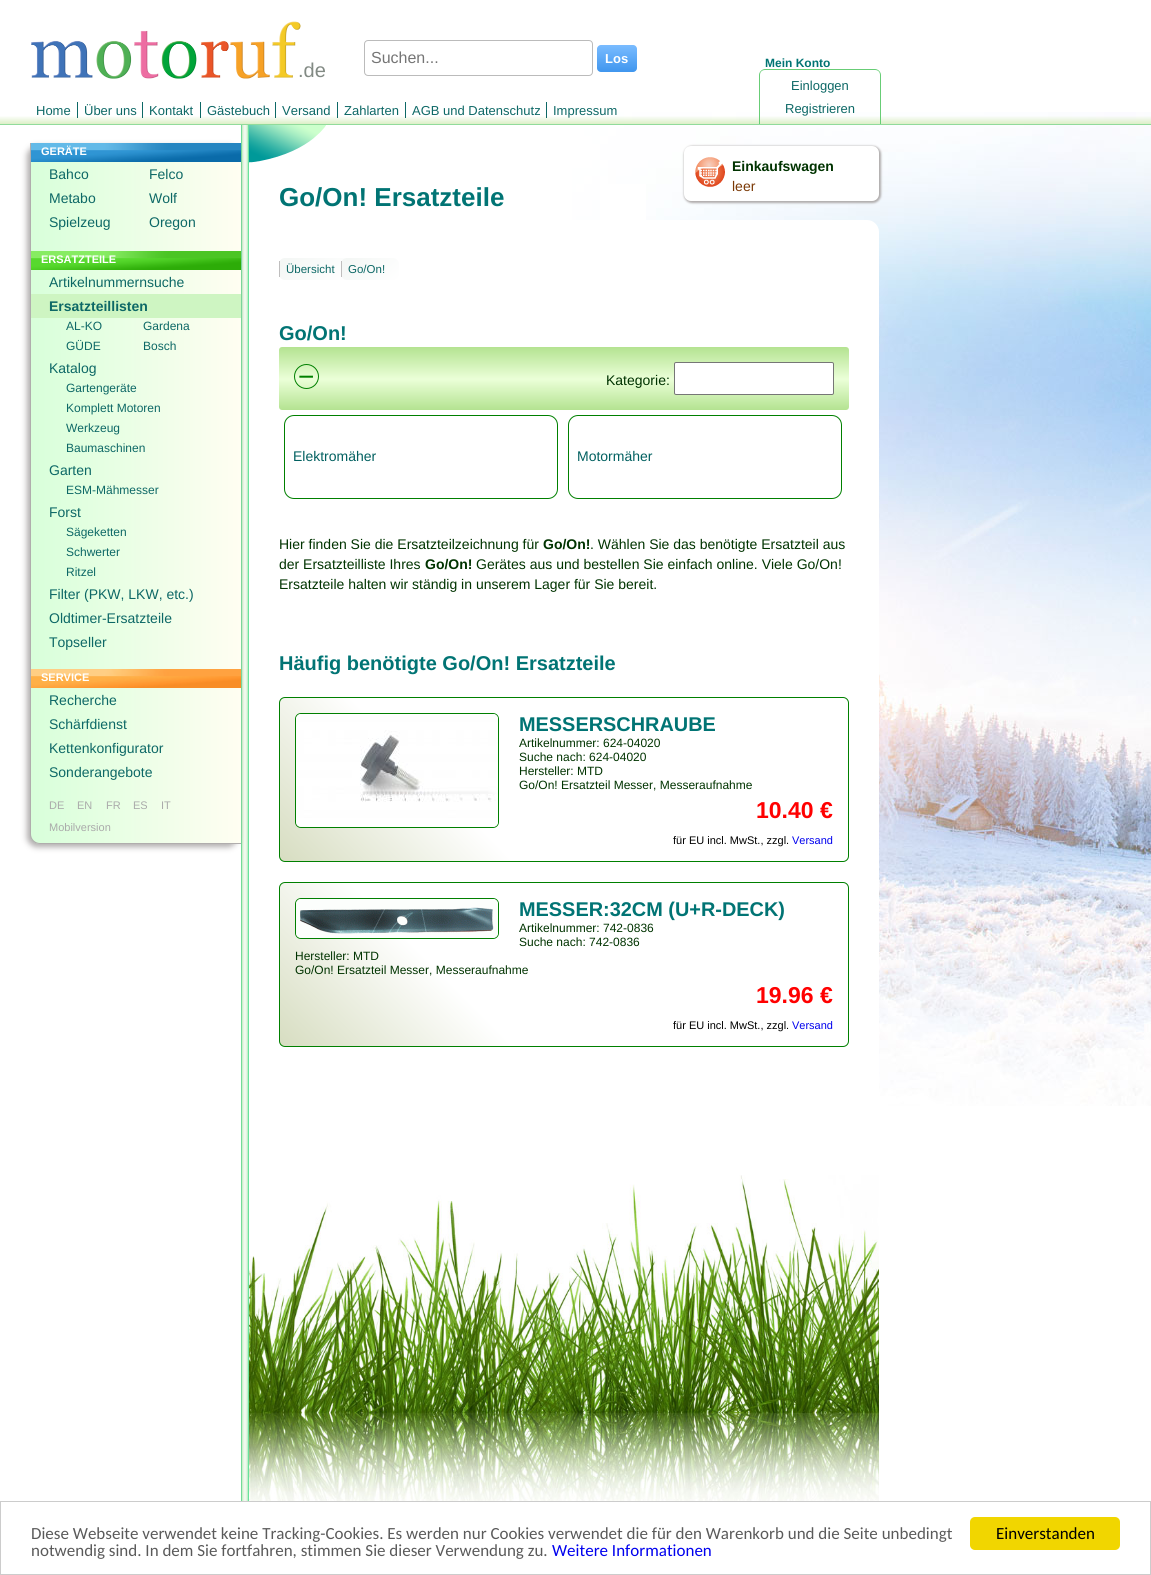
#include <cairo.h>
#include <math.h>
#include <stddef.h>


static void rgb(cairo_t *cr, int r, int g, int b)
{
	cairo_set_source_rgb(cr, r / 255.0, g / 255.0, b / 255.0);
}

static void face(cairo_t *cr, const char *family, double size, int italic, int bold)
{
	cairo_select_font_face(cr, family, italic ? CAIRO_FONT_SLANT_ITALIC : CAIRO_FONT_SLANT_NORMAL,
		bold ? CAIRO_FONT_WEIGHT_BOLD : CAIRO_FONT_WEIGHT_NORMAL);
	cairo_set_font_size(cr, size);
}

static void label(cairo_t *cr, double x, double y, const char *s)
{
	cairo_move_to(cr, x, y);
	cairo_show_text(cr, s);
}

static void rect(cairo_t *cr, double x, double y, double w, double h)
{
	cairo_rectangle(cr, x, y, w, h);
	cairo_fill(cr);
}

static void rrect(cairo_t *cr, double x, double y, double w, double h, double r)
{
	cairo_new_sub_path(cr);
	cairo_arc(cr, x + w - r, y + h - r, r, 0, M_PI / 2);
	cairo_arc(cr, x + r, y + h - r, r, M_PI / 2, M_PI);
	cairo_arc(cr, x + r, y + r, r, M_PI, 1.5 * M_PI);
	cairo_arc(cr, x + w - r, y + r, r, 1.5 * M_PI, 2 * M_PI);
	cairo_close_path(cr);
}

static void soft_shadow(cairo_t *cr, double x, double y, double w, double h, double r, double blur, double alpha)
{
	cairo_push_group_with_content(cr, CAIRO_CONTENT_ALPHA);
	cairo_set_operator(cr, CAIRO_OPERATOR_SOURCE);
	for (int i = 15; i >= -15 && fmin(w, h) + blur * i / 3 > 0; i -= 2) {
		double e = blur * i / 6;
		cairo_set_source_rgba(cr, 0, 0, 0, alpha * erfc((i - 1) / 8.5) / 2);
		rrect(cr, x - e, y - e, w + 2 * e, h + 2 * e, fmax(0, fmin(r + e + blur * .6, fmin(w, h) / 2 + e)));
		cairo_fill(cr);
	}
	cairo_pattern_t *soft = cairo_pop_group(cr);
	cairo_mask(cr, soft);
	cairo_pattern_destroy(soft);
}

static void image(cairo_t *cr, const char *path, double x, double y, double w, double h)
{
	cairo_surface_t *image = cairo_image_surface_create_from_png(path);
	cairo_save(cr);
	cairo_set_source_surface(cr, image, x, y);
	cairo_rectangle(cr, x, y, w, h);
	cairo_fill(cr);
	cairo_restore(cr);
	cairo_surface_destroy(image);
}

static void draw(cairo_t *cr) {
	cairo_pattern_t *gradient;
	rgb(cr, 255, 255, 255);
	cairo_paint(cr);
	image(cr, "image0.png", 572, 112, 579, 994);
	image(cr, "image1.png", 31, 21, 270, 58);
	face(cr, "Liberation Sans", 20, 0, 0);
	rgb(cr, 130, 138, 132);
	label(cr, 298, 77, ".de");
	rrect(cr, 364.5, 40.5, 228, 35, 3.5);
	rgb(cr, 187, 187, 187);
	cairo_set_line_width(cr, 1);
	cairo_stroke(cr);
	face(cr, "Liberation Sans", 16, 0, 0);
	rgb(cr, 117, 117, 117);
	label(cr, 371, 63, "Suchen...");
	gradient = cairo_pattern_create_linear(617, 45, 617, 72);
	cairo_pattern_add_color_stop_rgba(gradient, 0, 0.478, 0.737, 1, 1);
	cairo_pattern_add_color_stop_rgba(gradient, 0.44, 0.376, 0.671, 0.973, 1);
	cairo_pattern_add_color_stop_rgba(gradient, 1, 0.251, 0.588, 0.933, 1);
	cairo_set_source(cr, gradient);
	cairo_pattern_destroy(gradient);
	rrect(cr, 597, 45, 40, 27, 4);
	cairo_fill(cr);
	face(cr, "Liberation Sans", 13, 0, 1);
	rgb(cr, 255, 255, 255);
	label(cr, 605, 63, "Los");
	face(cr, "Liberation Sans", 12, 0, 1);
	rgb(cr, 1, 116, 116);
	label(cr, 765, 67, "Mein Konto");
	gradient = cairo_pattern_create_linear(576, 97, 576, 124);
	cairo_pattern_add_color_stop_rgba(gradient, 0.69, 0.863, 0.937, 0.78, 0);
	cairo_pattern_add_color_stop_rgba(gradient, 1, 0.863, 0.937, 0.78, 1);
	cairo_set_source(cr, gradient);
	cairo_pattern_destroy(gradient);
	rect(cr, 0, 116, 1151, 8);
	rgb(cr, 104, 205, 118);
	cairo_set_fill_rule(cr, CAIRO_FILL_RULE_EVEN_ODD);
	cairo_new_path(cr);
	cairo_move_to(cr, 765, 69);
	cairo_line_to(cr, 875, 69);
	cairo_curve_to(cr, 878, 69, 881, 72, 881, 75);
	cairo_line_to(cr, 881, 124);
	cairo_line_to(cr, 759, 124);
	cairo_line_to(cr, 759, 75);
	cairo_curve_to(cr, 759, 72, 762, 69, 765, 69);
	cairo_close_path(cr);
	cairo_move_to(cr, 765, 70);
	cairo_line_to(cr, 875, 70);
	cairo_curve_to(cr, 878, 70, 880, 72, 880, 75);
	cairo_line_to(cr, 880, 124);
	cairo_line_to(cr, 760, 124);
	cairo_line_to(cr, 760, 75);
	cairo_curve_to(cr, 760, 72, 762, 70, 765, 70);
	cairo_close_path(cr);
	cairo_fill(cr);
	face(cr, "Liberation Sans", 13, 0, 0);
	rgb(cr, 13, 104, 102);
	label(cr, 791, 90, "Einloggen");
	label(cr, 785, 113, "Registrieren");
	cairo_set_source_rgba(cr, 0.408, 0.804, 0.463, 0.73);
	rect(cr, 0, 124, 1151, 1);
	rgb(cr, 13, 104, 102);
	label(cr, 36, 115, "Home");
	rect(cr, 77, 102, 1, 16);
	label(cr, 84, 115, "Über uns");
	rect(cr, 142, 102, 1, 16);
	label(cr, 149, 115, "Kontakt");
	rect(cr, 200, 102, 1, 16);
	label(cr, 207, 115, "Gästebuch");
	rect(cr, 275, 102, 1, 16);
	label(cr, 282, 115, "Versand");
	rect(cr, 337, 102, 1, 16);
	label(cr, 344, 115, "Zahlarten");
	rect(cr, 405, 102, 1, 16);
	label(cr, 412, 115, "AGB und Datenschutz");
	rect(cr, 546, 102, 1, 16);
	label(cr, 553, 115, "Impressum");
	image(cr, "image5.png", 241, 125, 8, 1376);
	rgb(cr, 176, 173, 173);
	soft_shadow(cr, 27, 146, 211, 701, 10, 3, 1);
	cairo_save(cr);
	cairo_set_fill_rule(cr, CAIRO_FILL_RULE_WINDING);
	cairo_new_path(cr);
	cairo_move_to(cr, 30, 143);
	cairo_line_to(cr, 241, 143);
	cairo_line_to(cr, 241, 844);
	cairo_line_to(cr, 40, 844);
	cairo_curve_to(cr, 34.5, 844, 30, 839.5, 30, 834);
	cairo_close_path(cr);
	cairo_clip(cr);
	gradient = cairo_pattern_create_linear(31, 493, 241, 493);
	cairo_pattern_add_color_stop_rgba(gradient, 0, 0.847, 1, 0.855, 1);
	cairo_pattern_add_color_stop_rgba(gradient, 1, 1, 0.996, 0.949, 1);
	cairo_set_source(cr, gradient);
	cairo_pattern_destroy(gradient);
	rect(cr, 31, 162, 210, 682);
	cairo_restore(cr);
	rgb(cr, 176, 173, 173);
	cairo_new_path(cr);
	cairo_move_to(cr, 30, 143);
	cairo_line_to(cr, 241, 143);
	cairo_line_to(cr, 241, 844);
	cairo_line_to(cr, 40, 844);
	cairo_curve_to(cr, 34, 844, 30, 840, 30, 834);
	cairo_close_path(cr);
	cairo_move_to(cr, 31, 143);
	cairo_line_to(cr, 241, 143);
	cairo_line_to(cr, 241, 843);
	cairo_line_to(cr, 40, 843);
	cairo_curve_to(cr, 35, 843, 31, 839, 31, 834);
	cairo_close_path(cr);
	cairo_fill(cr);
	image(cr, "image2.png", 31, 143, 210, 19);
	face(cr, "Liberation Sans", 11, 0, 1);
	rgb(cr, 255, 255, 255);
	label(cr, 41, 155, "GERÄTE");
	face(cr, "Liberation Sans", 14, 0, 0);
	rgb(cr, 13, 104, 102);
	label(cr, 49, 179, "Bahco");
	label(cr, 149, 179, "Felco");
	label(cr, 49, 203, "Metabo");
	label(cr, 149, 203, "Wolf");
	label(cr, 49, 227, "Spielzeug");
	label(cr, 149, 227, "Oregon");
	image(cr, "image3.png", 31, 251, 210, 19);
	face(cr, "Liberation Sans", 11, 0, 1);
	rgb(cr, 255, 255, 255);
	label(cr, 41, 263, "ERSATZTEILE");
	face(cr, "Liberation Sans", 14, 0, 0);
	rgb(cr, 13, 104, 102);
	label(cr, 49, 287, "Artikelnummernsuche");
	rgb(cr, 206, 245, 194);
	rect(cr, 31, 294, 210, 24);
	face(cr, "Liberation Sans", 14, 0, 1);
	rgb(cr, 13, 104, 102);
	label(cr, 49, 311, "Ersatzteillisten");
	face(cr, "Liberation Sans", 12, 0, 0);
	label(cr, 66, 330, "AL-KO");
	label(cr, 143, 330, "Gardena");
	label(cr, 66, 350, "GÜDE");
	label(cr, 143, 350, "Bosch");
	face(cr, "Liberation Sans", 14, 0, 0);
	label(cr, 49, 373, "Katalog");
	face(cr, "Liberation Sans", 12, 0, 0);
	label(cr, 66, 392, "Gartengeräte");
	label(cr, 66, 412, "Komplett Motoren");
	label(cr, 66, 432, "Werkzeug");
	label(cr, 66, 452, "Baumaschinen");
	face(cr, "Liberation Sans", 14, 0, 0);
	label(cr, 49, 475, "Garten");
	face(cr, "Liberation Sans", 12, 0, 0);
	label(cr, 66, 494, "ESM-Mähmesser");
	face(cr, "Liberation Sans", 14, 0, 0);
	label(cr, 49, 517, "Forst");
	face(cr, "Liberation Sans", 12, 0, 0);
	label(cr, 66, 536, "Sägeketten");
	label(cr, 66, 556, "Schwerter");
	label(cr, 66, 576, "Ritzel");
	face(cr, "Liberation Sans", 14, 0, 0);
	label(cr, 49, 599, "Filter (PKW, LKW, etc.)");
	label(cr, 49, 623, "Oldtimer-Ersatzteile");
	label(cr, 49, 647, "Topseller");
	image(cr, "image4.png", 31, 669, 210, 19);
	face(cr, "Liberation Sans", 11, 0, 1);
	rgb(cr, 255, 255, 255);
	label(cr, 41, 681, "SERVICE");
	face(cr, "Liberation Sans", 14, 0, 0);
	rgb(cr, 13, 104, 102);
	label(cr, 49, 705, "Recherche");
	label(cr, 49, 729, "Schärfdienst");
	label(cr, 49, 753, "Kettenkonfigurator");
	label(cr, 49, 777, "Sonderangebote");
	face(cr, "Liberation Sans", 11, 0, 0);
	rgb(cr, 170, 170, 170);
	label(cr, 49, 809, "DE");
	label(cr, 77, 809, "EN");
	label(cr, 106, 809, "FR");
	label(cr, 133, 809, "ES");
	label(cr, 161, 809, "IT");
	label(cr, 49, 831, "Mobilversion");
	rgb(cr, 255, 255, 255);
	rect(cr, 600, 184, 46, 36);
	image(cr, "image6.png", 249, 125, 77, 38);
	face(cr, "Liberation Sans", 26, 0, 1);
	rgb(cr, 1, 116, 116);
	label(cr, 279, 206, "Go/On! Ersatzteile");
	rgb(cr, 255, 255, 255);
	cairo_new_path(cr);
	cairo_move_to(cr, 249, 220);
	cairo_line_to(cr, 867, 220);
	cairo_curve_to(cr, 873.5, 220, 879, 225.5, 879, 232);
	cairo_line_to(cr, 879, 1535);
	cairo_line_to(cr, 249, 1535);
	cairo_close_path(cr);
	cairo_fill(cr);
	cairo_save(cr);
	cairo_set_fill_rule(cr, CAIRO_FILL_RULE_WINDING);
	rrect(cr, 279, 258, 70, 22, 6);
	cairo_clip(cr);
	gradient = cairo_pattern_create_linear(292, 246, 337, 292);
	cairo_pattern_add_color_stop_rgba(gradient, 0, 0.953, 0.965, 0.957, 1);
	cairo_pattern_add_color_stop_rgba(gradient, 1, 1, 1, 1, 1);
	cairo_set_source(cr, gradient);
	cairo_pattern_destroy(gradient);
	cairo_new_path(cr);
	cairo_move_to(cr, 280, 258);
	cairo_line_to(cr, 343, 258);
	cairo_curve_to(cr, 346.5, 258, 349, 260.5, 349, 264);
	cairo_line_to(cr, 349, 274);
	cairo_curve_to(cr, 349, 277.5, 346.5, 280, 343, 280);
	cairo_line_to(cr, 280, 280);
	cairo_close_path(cr);
	cairo_fill(cr);
	cairo_restore(cr);
	rgb(cr, 191, 190, 190);
	rect(cr, 279, 261, 1, 16);
	face(cr, "Liberation Sans", 11.5, 0, 0);
	rgb(cr, 13, 104, 102);
	label(cr, 286, 273, "Übersicht");
	cairo_save(cr);
	cairo_set_fill_rule(cr, CAIRO_FILL_RULE_WINDING);
	rrect(cr, 341, 258, 58, 22, 6);
	cairo_clip(cr);
	gradient = cairo_pattern_create_linear(351, 249, 390, 289);
	cairo_pattern_add_color_stop_rgba(gradient, 0, 0.953, 0.965, 0.957, 1);
	cairo_pattern_add_color_stop_rgba(gradient, 1, 1, 1, 1, 1);
	cairo_set_source(cr, gradient);
	cairo_pattern_destroy(gradient);
	cairo_new_path(cr);
	cairo_move_to(cr, 342, 258);
	cairo_line_to(cr, 393, 258);
	cairo_curve_to(cr, 396.5, 258, 399, 260.5, 399, 264);
	cairo_line_to(cr, 399, 274);
	cairo_curve_to(cr, 399, 277.5, 396.5, 280, 393, 280);
	cairo_line_to(cr, 342, 280);
	cairo_close_path(cr);
	cairo_fill(cr);
	cairo_restore(cr);
	rgb(cr, 191, 190, 190);
	rect(cr, 341, 261, 1, 16);
	rgb(cr, 13, 104, 102);
	label(cr, 348, 273, "Go/On!");
	face(cr, "Liberation Sans", 20, 0, 1);
	rgb(cr, 1, 116, 116);
	label(cr, 279, 340, "Go/On!");
	gradient = cairo_pattern_create_linear(564, 347, 564, 410);
	cairo_pattern_add_color_stop_rgba(gradient, 0, 0.706, 0.89, 0.569, 1);
	cairo_pattern_add_color_stop_rgba(gradient, 0.51, 0.922, 1, 0.847, 1);
	cairo_pattern_add_color_stop_rgba(gradient, 1, 0.706, 0.89, 0.569, 1);
	cairo_set_source(cr, gradient);
	cairo_pattern_destroy(gradient);
	rrect(cr, 279, 347, 570, 63, 3);
	cairo_fill(cr);
	cairo_arc(cr, 306.5, 376.5, 12, 0, 2 * M_PI);
	rgb(cr, 0, 128, 0);
	cairo_stroke(cr);
	face(cr, "Liberation Sans", 28, 0, 0);
	label(cr, 298, 386, "−");
	face(cr, "Liberation Sans", 14, 0, 0);
	rgb(cr, 0, 51, 0);
	label(cr, 606, 385, "Kategorie:");
	rgb(cr, 255, 255, 255);
	rrect(cr, 674.5, 362.5, 159, 32, 1.5);
	cairo_fill_preserve(cr);
	rgb(cr, 118, 118, 118);
	cairo_stroke(cr);
	rrect(cr, 284.5, 415.5, 273, 83, 9.5);
	rgb(cr, 0, 128, 0);
	cairo_stroke(cr);
	rgb(cr, 1, 96, 96);
	label(cr, 293, 461, "Elektromäher");
	rrect(cr, 568.5, 415.5, 273, 83, 9.5);
	rgb(cr, 0, 128, 0);
	cairo_stroke(cr);
	rgb(cr, 1, 96, 96);
	label(cr, 577, 461, "Motormäher");
	rgb(cr, 0, 51, 0);
	label(cr, 279, 549, "Hier finden Sie die Ersatzteilzeichnung für");
	face(cr, "Liberation Sans", 14, 0, 1);
	label(cr, 543, 549, "Go/On!");
	face(cr, "Liberation Sans", 14, 0, 0);
	label(cr, 590, 549, ". Wählen Sie das benötigte Ersatzteil aus");
	label(cr, 279, 569, "der Ersatzteilliste Ihres");
	face(cr, "Liberation Sans", 14, 0, 1);
	label(cr, 425, 569, "Go/On!");
	face(cr, "Liberation Sans", 14, 0, 0);
	label(cr, 476, 569, "Gerätes aus und bestellen Sie einfach online. Viele Go/On!");
	label(cr, 279, 589, "Ersatzteile halten wir ständig in unserem Lager für Sie bereit.");
	face(cr, "Liberation Sans", 20, 0, 1);
	rgb(cr, 1, 116, 116);
	label(cr, 279, 670, "Häufig benötigte Go/On! Ersatzteile");
	cairo_save(cr);
	cairo_set_fill_rule(cr, CAIRO_FILL_RULE_WINDING);
	rrect(cr, 279, 697, 570, 165, 6);
	cairo_clip(cr);
	gradient = cairo_pattern_create_linear(381, 962, 747, 597);
	cairo_pattern_add_color_stop_rgba(gradient, 0, 0.843, 0.867, 0.757, 1);
	cairo_pattern_add_color_stop_rgba(gradient, 0.32, 1, 1, 1, 1);
	cairo_set_source(cr, gradient);
	cairo_pattern_destroy(gradient);
	rect(cr, 280, 698, 568, 163);
	cairo_restore(cr);
	rrect(cr, 279.5, 697.5, 569, 164, 5.5);
	rgb(cr, 0, 128, 0);
	cairo_stroke(cr);
	rrect(cr, 295.5, 713.5, 203, 114, 5.5);
	cairo_stroke(cr);
	image(cr, "image7.png", 296, 714, 202, 113);
	face(cr, "Liberation Sans", 19.9, 0, 1);
	rgb(cr, 1, 116, 116);
	label(cr, 519, 731, "MESSERSCHRAUBE");
	face(cr, "Liberation Sans", 12, 0, 0);
	rgb(cr, 0, 51, 0);
	label(cr, 519, 747, "Artikelnummer: 624-04020");
	label(cr, 519, 761, "Suche nach: 624-04020");
	label(cr, 519, 775, "Hersteller: MTD");
	label(cr, 519, 789, "Go/On! Ersatzteil Messer, Messeraufnahme");
	face(cr, "Liberation Sans", 23, 0, 1);
	rgb(cr, 255, 0, 0);
	label(cr, 756, 818, "10.40 €");
	face(cr, "Liberation Sans", 11, 0, 0);
	rgb(cr, 0, 0, 0);
	label(cr, 673, 844, "für EU incl. MwSt., zzgl.");
	rgb(cr, 0, 0, 238);
	label(cr, 792, 844, "Versand");
	cairo_save(cr);
	cairo_set_fill_rule(cr, CAIRO_FILL_RULE_WINDING);
	rrect(cr, 279, 882, 570, 165, 6);
	cairo_clip(cr);
	gradient = cairo_pattern_create_linear(381, 1147, 747, 782);
	cairo_pattern_add_color_stop_rgba(gradient, 0, 0.843, 0.867, 0.757, 1);
	cairo_pattern_add_color_stop_rgba(gradient, 0.32, 1, 1, 1, 1);
	cairo_set_source(cr, gradient);
	cairo_pattern_destroy(gradient);
	rect(cr, 280, 883, 568, 163);
	cairo_restore(cr);
	rrect(cr, 279.5, 882.5, 569, 164, 5.5);
	rgb(cr, 0, 128, 0);
	cairo_stroke(cr);
	rrect(cr, 295.5, 898.5, 203, 40, 5.5);
	cairo_stroke(cr);
	image(cr, "image8.png", 296, 899, 202, 39);
	face(cr, "Liberation Sans", 19.9, 0, 1);
	rgb(cr, 1, 116, 116);
	label(cr, 519, 916, "MESSER:32CM (U+R-DECK)");
	face(cr, "Liberation Sans", 12, 0, 0);
	rgb(cr, 0, 51, 0);
	label(cr, 519, 932, "Artikelnummer: 742-0836");
	label(cr, 519, 946, "Suche nach: 742-0836");
	label(cr, 295, 960, "Hersteller: MTD");
	label(cr, 295, 974, "Go/On! Ersatzteil Messer, Messeraufnahme");
	face(cr, "Liberation Sans", 23, 0, 1);
	rgb(cr, 255, 0, 0);
	label(cr, 756, 1003, "19.96 €");
	face(cr, "Liberation Sans", 11, 0, 0);
	rgb(cr, 0, 0, 0);
	label(cr, 673, 1029, "für EU incl. MwSt., zzgl.");
	rgb(cr, 0, 0, 238);
	label(cr, 792, 1029, "Versand");
	image(cr, "image9.png", 249, 1175, 630, 326);
	rgb(cr, 176, 173, 173);
	soft_shadow(cr, 684, 146, 197, 57, 8, 1, 1);
	rgb(cr, 255, 255, 255);
	rrect(cr, 684, 146, 195, 55, 7);
	cairo_fill(cr);
	image(cr, "image10.png", 695, 157, 30, 30);
	face(cr, "Liberation Sans", 14, 0, 1);
	rgb(cr, 0, 51, 0);
	label(cr, 732, 171, "Einkaufswagen");
	face(cr, "Liberation Sans", 14, 0, 0);
	rgb(cr, 122, 56, 5);
	label(cr, 732, 191, "leer");
	cairo_rectangle(cr, 0.5, 1501.5, 1150, 73);
	rgb(cr, 204, 204, 204);
	cairo_stroke(cr);
	face(cr, "Carlito", 17, 0, 0);
	rgb(cr, 90, 90, 90);
	label(cr, 31, 1539, "Diese Webseite verwendet keine Tracking-Cookies. Es werden nur Cookies verwendet die für den Warenkorb und die Seite unbedingt");
	label(cr, 31, 1556, "notwendig sind. In dem Sie fortfahren, stimmen Sie dieser Verwendung zu.");
	rgb(cr, 0, 0, 238);
	label(cr, 552, 1556, "Weitere Informationen");
	rgb(cr, 241, 214, 0);
	rrect(cr, 970, 1517, 150, 33, 5);
	cairo_fill(cr);
	rgb(cr, 0, 0, 0);
	label(cr, 996, 1539, "Einverstanden");
}

int main(void) {
	cairo_surface_t *surface = cairo_image_surface_create(CAIRO_FORMAT_RGB24, 1151, 1575);
	cairo_t *cr = cairo_create(surface);
	cairo_font_options_t *options = cairo_font_options_create();
	cairo_font_options_set_hint_metrics(options, CAIRO_HINT_METRICS_OFF);
	cairo_font_options_set_hint_style(options, CAIRO_HINT_STYLE_NONE);
	cairo_set_font_options(cr, options);
	cairo_set_miter_limit(cr, 4);
	draw(cr);
	cairo_surface_write_to_png(surface, "render.png");
	cairo_font_options_destroy(options);
	cairo_destroy(cr);
	cairo_surface_destroy(surface);
	return 0;
}
